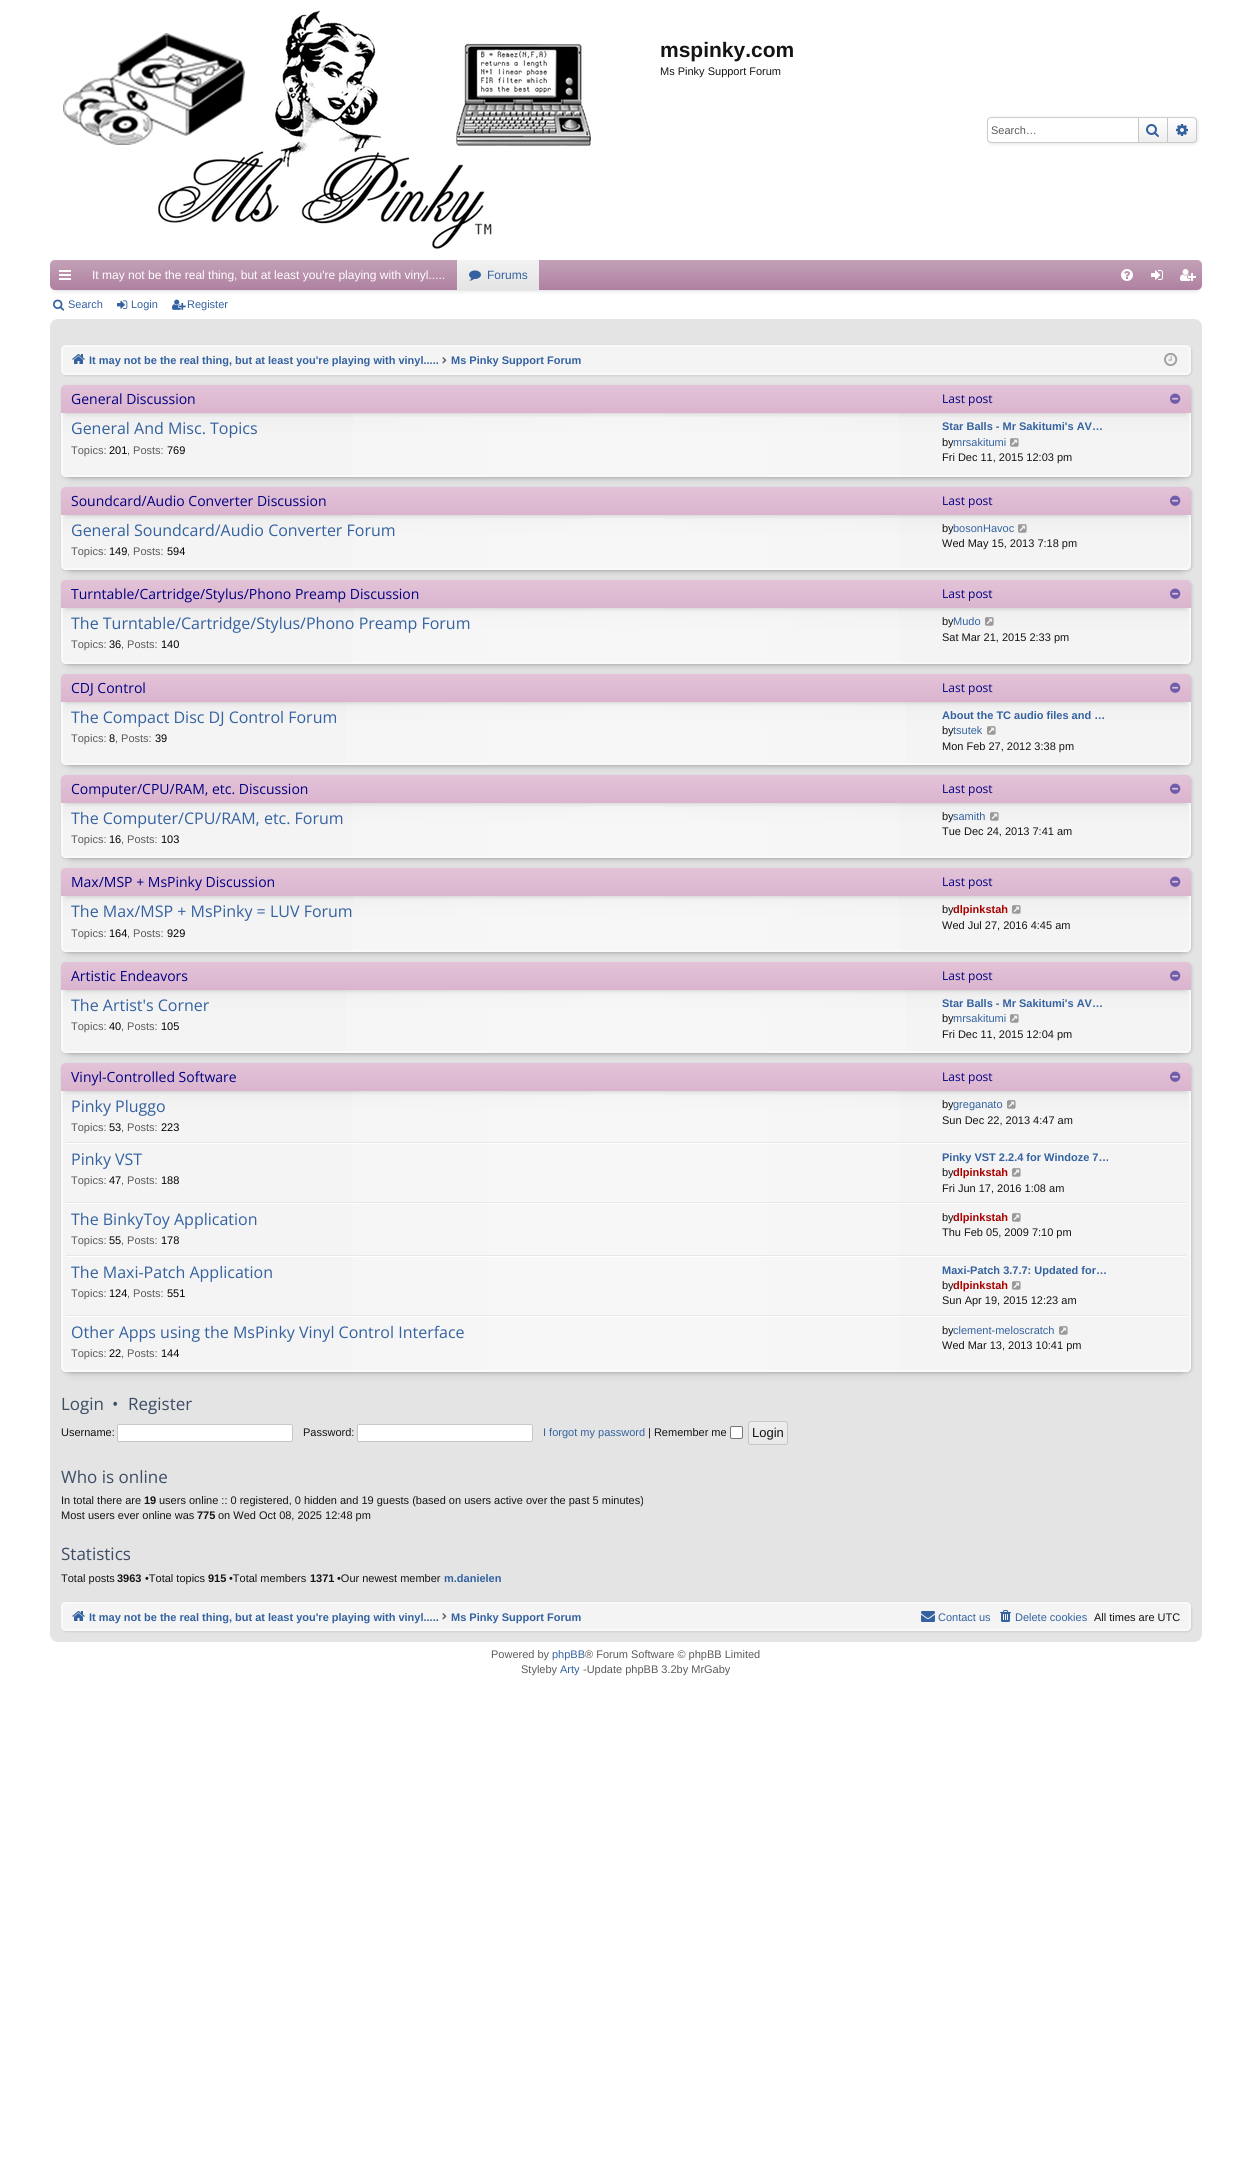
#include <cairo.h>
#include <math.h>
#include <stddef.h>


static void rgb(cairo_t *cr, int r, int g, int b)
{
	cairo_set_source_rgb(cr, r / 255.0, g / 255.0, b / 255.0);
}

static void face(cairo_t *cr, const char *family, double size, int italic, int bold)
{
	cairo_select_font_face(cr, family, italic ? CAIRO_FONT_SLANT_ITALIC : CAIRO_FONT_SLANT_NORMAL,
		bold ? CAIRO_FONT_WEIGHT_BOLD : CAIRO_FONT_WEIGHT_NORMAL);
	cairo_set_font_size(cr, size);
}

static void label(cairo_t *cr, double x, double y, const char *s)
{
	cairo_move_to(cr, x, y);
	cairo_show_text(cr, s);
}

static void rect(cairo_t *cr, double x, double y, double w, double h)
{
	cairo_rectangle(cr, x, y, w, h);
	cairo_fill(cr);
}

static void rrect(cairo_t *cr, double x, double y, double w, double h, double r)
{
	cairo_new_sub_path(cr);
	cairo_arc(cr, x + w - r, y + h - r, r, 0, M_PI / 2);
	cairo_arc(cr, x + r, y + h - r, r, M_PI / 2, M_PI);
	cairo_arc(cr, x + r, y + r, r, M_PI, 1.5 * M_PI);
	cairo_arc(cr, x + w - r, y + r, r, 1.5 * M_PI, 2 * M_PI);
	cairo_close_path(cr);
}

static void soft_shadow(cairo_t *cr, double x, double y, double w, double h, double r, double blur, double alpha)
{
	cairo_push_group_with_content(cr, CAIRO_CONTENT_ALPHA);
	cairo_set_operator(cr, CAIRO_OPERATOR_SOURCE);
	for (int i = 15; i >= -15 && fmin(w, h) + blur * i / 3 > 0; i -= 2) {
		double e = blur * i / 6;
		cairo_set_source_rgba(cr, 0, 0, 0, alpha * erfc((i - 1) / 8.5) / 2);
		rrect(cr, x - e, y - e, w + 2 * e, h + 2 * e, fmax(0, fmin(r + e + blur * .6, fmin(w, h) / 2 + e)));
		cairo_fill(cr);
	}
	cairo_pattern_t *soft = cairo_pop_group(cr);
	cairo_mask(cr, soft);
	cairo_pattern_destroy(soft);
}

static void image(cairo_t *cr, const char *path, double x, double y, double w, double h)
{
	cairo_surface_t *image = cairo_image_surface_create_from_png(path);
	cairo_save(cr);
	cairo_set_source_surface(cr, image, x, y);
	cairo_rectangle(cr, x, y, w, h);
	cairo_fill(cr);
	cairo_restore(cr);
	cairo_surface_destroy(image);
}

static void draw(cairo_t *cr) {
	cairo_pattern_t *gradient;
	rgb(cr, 255, 255, 255);
	cairo_paint(cr);
	image(cr, "image0.png", 63, 10, 528, 239);
	face(cr, "Liberation Sans", 21, 0, 1);
	rgb(cr, 20, 20, 20);
	label(cr, 660, 57, "mspinky.com");
	face(cr, "Liberation Sans", 11, 0, 0);
	label(cr, 660, 75, "Ms Pinky Support Forum");
	rgb(cr, 0, 0, 0);
	soft_shadow(cr, 988, 118, 210, 26, 4, 1.5, 0.1);
	rrect(cr, 987.5, 117.5, 209, 25, 3.5);
	rgb(cr, 204, 204, 204);
	cairo_set_line_width(cr, 1);
	cairo_stroke(cr);
	rgb(cr, 255, 255, 255);
	cairo_new_path(cr);
	cairo_move_to(cr, 992, 118);
	cairo_line_to(cr, 1138, 118);
	cairo_line_to(cr, 1138, 142);
	cairo_line_to(cr, 992, 142);
	cairo_curve_to(cr, 990, 142, 988, 140, 988, 138);
	cairo_line_to(cr, 988, 122);
	cairo_curve_to(cr, 988, 120, 990, 118, 992, 118);
	cairo_close_path(cr);
	cairo_fill(cr);
	rgb(cr, 91, 91, 91);
	label(cr, 991, 134, "Search…");
	gradient = cairo_pattern_create_linear(1153, 118, 1153, 142);
	cairo_pattern_add_color_stop_rgba(gradient, 0, 1, 1, 1, 1);
	cairo_pattern_add_color_stop_rgba(gradient, 1, 0.933, 0.933, 0.933, 1);
	cairo_set_source(cr, gradient);
	cairo_pattern_destroy(gradient);
	rect(cr, 1139, 118, 28, 24);
	rgb(cr, 198, 198, 198);
	rect(cr, 1167, 118, 1, 24);
	rect(cr, 1138, 118, 1, 24);
	image(cr, "image1.png", 1146, 124, 13, 13);
	rgb(cr, 238, 238, 238);
	cairo_new_path(cr);
	cairo_move_to(cr, 1168, 118);
	cairo_line_to(cr, 1192, 118);
	cairo_curve_to(cr, 1194, 118, 1196, 120, 1196, 122);
	cairo_line_to(cr, 1196, 138);
	cairo_curve_to(cr, 1196, 140, 1194, 142, 1192, 142);
	cairo_line_to(cr, 1168, 142);
	cairo_close_path(cr);
	cairo_fill(cr);
	gradient = cairo_pattern_create_linear(1182, 118, 1182, 142);
	cairo_pattern_add_color_stop_rgba(gradient, 0, 1, 1, 1, 1);
	cairo_pattern_add_color_stop_rgba(gradient, 1, 1, 1, 1, 0);
	cairo_set_source(cr, gradient);
	cairo_pattern_destroy(gradient);
	cairo_new_path(cr);
	cairo_move_to(cr, 1168, 118);
	cairo_line_to(cr, 1192, 118);
	cairo_curve_to(cr, 1194, 118, 1196, 120, 1196, 122);
	cairo_line_to(cr, 1196, 138);
	cairo_curve_to(cr, 1196, 140, 1194, 142, 1192, 142);
	cairo_line_to(cr, 1168, 142);
	cairo_close_path(cr);
	cairo_fill(cr);
	image(cr, "image2.png", 1176, 124, 12, 12);
	rgb(cr, 0, 0, 0);
	soft_shadow(cr, 55, 270, 1142, 20, 0, 2.5, 0.2);
	rgb(cr, 175, 129, 160);
	rrect(cr, 50, 260, 1152, 30, 5);
	cairo_fill(cr);
	gradient = cairo_pattern_create_linear(626, 260, 626, 290);
	cairo_pattern_add_color_stop_rgba(gradient, 0, 1, 1, 1, 0.25);
	cairo_pattern_add_color_stop_rgba(gradient, 1, 1, 1, 1, 0);
	cairo_set_source(cr, gradient);
	cairo_pattern_destroy(gradient);
	rrect(cr, 50, 260, 1152, 30, 5);
	cairo_fill(cr);
	image(cr, "image3.png", 59, 270, 12, 10);
	face(cr, "Liberation Sans", 12, 0, 0);
	rgb(cr, 255, 255, 255);
	label(cr, 92, 279, "It may not be the real thing, but at least you're playing with vinyl.....");
	gradient = cairo_pattern_create_linear(498, 260, 498, 290);
	cairo_pattern_add_color_stop_rgba(gradient, 0, 0.949, 0.949, 0.949, 1);
	cairo_pattern_add_color_stop_rgba(gradient, 1, 0.894, 0.894, 0.894, 1);
	cairo_set_source(cr, gradient);
	cairo_pattern_destroy(gradient);
	rect(cr, 457, 260, 82, 30);
	image(cr, "image4.png", 469, 270, 12, 11);
	rgb(cr, 52, 98, 160);
	label(cr, 487, 279, "Forums");
	image(cr, "image5.png", 1121, 269, 12, 12);
	image(cr, "image6.png", 1151, 270, 12, 10);
	image(cr, "image7.png", 1180, 269, 16, 12);
	image(cr, "image8.png", 53, 299, 12, 12);
	face(cr, "Liberation Sans", 11, 0, 0);
	label(cr, 68, 308, "Search");
	image(cr, "image9.png", 117, 300, 11, 9);
	label(cr, 131, 308, "Login");
	image(cr, "image10.png", 172, 299, 14, 11);
	label(cr, 187, 308, "Register");
	rgb(cr, 228, 228, 228);
	rrect(cr, 50.5, 319.5, 1151, 1322, 7.5);
	cairo_fill_preserve(cr);
	cairo_stroke(cr);
	rgb(cr, 0, 0, 0);
	soft_shadow(cr, 62, 346, 1130, 30, 5, 1, 0.1);
	rgb(cr, 244, 244, 244);
	rrect(cr, 61, 345, 1130, 30, 5);
	cairo_fill(cr);
	rrect(cr, 62.5, 346.5, 1127, 27, 3.5);
	rgb(cr, 250, 250, 250);
	cairo_stroke(cr);
	rrect(cr, 61.5, 345.5, 1129, 29, 4.5);
	rgb(cr, 249, 249, 249);
	cairo_stroke(cr);
	image(cr, "image11.png", 72, 354, 13, 10);
	face(cr, "Liberation Sans", 11, 0, 1);
	rgb(cr, 52, 98, 160);
	label(cr, 89, 364, "It may not be the real thing, but at least you're playing with vinyl.....");
	image(cr, "image12.png", 442, 357, 5, 7);
	label(cr, 451, 364, "Ms Pinky Support Forum");
	image(cr, "image13.png", 1164, 352, 14, 15);
	rgb(cr, 0, 0, 0);
	soft_shadow(cr, 71, 405, 1110, 72, 0, 5, 0.2);
	soft_shadow(cr, 62, 386, 1130, 92, 5, 1.5, 0.15);
	rgb(cr, 244, 244, 244);
	rrect(cr, 61, 385, 1130, 92, 5);
	cairo_fill(cr);
	cairo_save(cr);
	rrect(cr, 61, 385, 1130, 92, 5);
	cairo_clip(cr);
	gradient = cairo_pattern_create_linear(626, 386, 626, 476);
	cairo_pattern_add_color_stop_rgba(gradient, 0, 0.8, 0.8, 0.8, 0.2);
	cairo_pattern_add_color_stop_rgba(gradient, 0.11, 0.8, 0.8, 0.8, 0.25);
	cairo_pattern_add_color_stop_rgba(gradient, 0.56, 0.8, 0.8, 0.8, 0);
	cairo_set_source(cr, gradient);
	cairo_pattern_destroy(gradient);
	rect(cr, 61, 386, 1130, 47);
	cairo_restore(cr);
	gradient = cairo_pattern_create_linear(62, 431, 1190, 431);
	cairo_pattern_add_color_stop_rgba(gradient, 0, 1, 1, 1, 0);
	cairo_pattern_add_color_stop_rgba(gradient, 0.5, 1, 1, 1, 0.3);
	cairo_pattern_add_color_stop_rgba(gradient, 1, 1, 1, 1, 0);
	cairo_set_source(cr, gradient);
	cairo_pattern_destroy(gradient);
	rect(cr, 353, 413, 546, 63);
	rrect(cr, 62.5, 386.5, 1127, 89, 3.5);
	cairo_set_source_rgba(cr, 1, 1, 1, 0.5);
	cairo_stroke(cr);
	rrect(cr, 61.5, 385.5, 1129, 91, 4.5);
	rgb(cr, 249, 249, 249);
	cairo_stroke(cr);
	rgb(cr, 0, 0, 0);
	soft_shadow(cr, 66, 395, 1120, 18, 0, 2.5, 0.2);
	rgb(cr, 219, 180, 206);
	cairo_new_path(cr);
	cairo_move_to(cr, 65, 385);
	cairo_line_to(cr, 1187, 385);
	cairo_curve_to(cr, 1189, 385, 1191, 387, 1191, 389);
	cairo_line_to(cr, 1191, 413);
	cairo_line_to(cr, 61, 413);
	cairo_line_to(cr, 61, 389);
	cairo_curve_to(cr, 61, 387, 63, 385, 65, 385);
	cairo_close_path(cr);
	cairo_fill(cr);
	gradient = cairo_pattern_create_linear(626, 385, 626, 413);
	cairo_pattern_add_color_stop_rgba(gradient, 0, 1, 1, 1, 0.2);
	cairo_pattern_add_color_stop_rgba(gradient, 1, 1, 1, 1, 0);
	cairo_set_source(cr, gradient);
	cairo_pattern_destroy(gradient);
	cairo_new_path(cr);
	cairo_move_to(cr, 65, 385);
	cairo_line_to(cr, 1187, 385);
	cairo_curve_to(cr, 1189, 385, 1191, 387, 1191, 389);
	cairo_line_to(cr, 1191, 413);
	cairo_line_to(cr, 61, 413);
	cairo_line_to(cr, 61, 389);
	cairo_curve_to(cr, 61, 387, 63, 385, 65, 385);
	cairo_close_path(cr);
	cairo_fill(cr);
	face(cr, "Open Sans", 14, 0, 0);
	rgb(cr, 0, 0, 128);
	label(cr, 71, 404, "General Discussion");
	face(cr, "Open Sans", 12, 0, 0);
	label(cr, 942, 403, "Last post");
	image(cr, "image14.png", 1170, 393, 11, 11);
	face(cr, "Open Sans", 16, 0, 0);
	rgb(cr, 52, 98, 160);
	label(cr, 71, 434, "General And Misc. Topics");
	face(cr, "Liberation Sans", 11, 0, 0);
	rgb(cr, 91, 91, 91);
	label(cr, 71, 454, "Topics:");
	rgb(cr, 0, 0, 0);
	label(cr, 109, 454, "201");
	rgb(cr, 91, 91, 91);
	label(cr, 127, 454, ", Posts:");
	rgb(cr, 0, 0, 0);
	label(cr, 167, 454, "769");
	face(cr, "Liberation Sans", 11, 0, 1);
	rgb(cr, 52, 98, 160);
	label(cr, 942, 430, "Star Balls - Mr Sakitumi's AV…");
	face(cr, "Liberation Sans", 11, 0, 0);
	rgb(cr, 20, 20, 20);
	label(cr, 942, 446, "by");
	rgb(cr, 52, 98, 160);
	label(cr, 953, 446, "mrsakitumi");
	image(cr, "image15.png", 1010, 438, 9, 9);
	rgb(cr, 20, 20, 20);
	label(cr, 942, 461, "Fri Dec 11, 2015 12:03 pm");
	rgb(cr, 0, 0, 0);
	soft_shadow(cr, 71, 507, 1110, 63, 0, 5, 0.2);
	soft_shadow(cr, 62, 488, 1130, 83, 5, 1.5, 0.15);
	rgb(cr, 244, 244, 244);
	rrect(cr, 61, 487, 1130, 83, 5);
	cairo_fill(cr);
	cairo_save(cr);
	rrect(cr, 61, 487, 1130, 83, 5);
	cairo_clip(cr);
	gradient = cairo_pattern_create_linear(626, 488, 626, 569);
	cairo_pattern_add_color_stop_rgba(gradient, 0, 0.8, 0.8, 0.8, 0.2);
	cairo_pattern_add_color_stop_rgba(gradient, 0.12, 0.8, 0.8, 0.8, 0.25);
	cairo_pattern_add_color_stop_rgba(gradient, 0.62, 0.8, 0.8, 0.8, 0);
	cairo_set_source(cr, gradient);
	cairo_pattern_destroy(gradient);
	rect(cr, 61, 488, 1130, 47);
	cairo_restore(cr);
	gradient = cairo_pattern_create_linear(62, 529, 1190, 529);
	cairo_pattern_add_color_stop_rgba(gradient, 0, 1, 1, 1, 0);
	cairo_pattern_add_color_stop_rgba(gradient, 0.5, 1, 1, 1, 0.3);
	cairo_pattern_add_color_stop_rgba(gradient, 1, 1, 1, 1, 0);
	cairo_set_source(cr, gradient);
	cairo_pattern_destroy(gradient);
	rect(cr, 353, 515, 546, 54);
	rrect(cr, 62.5, 488.5, 1127, 80, 3.5);
	cairo_set_source_rgba(cr, 1, 1, 1, 0.5);
	cairo_stroke(cr);
	rrect(cr, 61.5, 487.5, 1129, 82, 4.5);
	rgb(cr, 249, 249, 249);
	cairo_stroke(cr);
	rgb(cr, 0, 0, 0);
	soft_shadow(cr, 66, 497, 1120, 18, 0, 2.5, 0.2);
	rgb(cr, 219, 180, 206);
	cairo_new_path(cr);
	cairo_move_to(cr, 65, 487);
	cairo_line_to(cr, 1187, 487);
	cairo_curve_to(cr, 1189, 487, 1191, 489, 1191, 491);
	cairo_line_to(cr, 1191, 515);
	cairo_line_to(cr, 61, 515);
	cairo_line_to(cr, 61, 491);
	cairo_curve_to(cr, 61, 489, 63, 487, 65, 487);
	cairo_close_path(cr);
	cairo_fill(cr);
	gradient = cairo_pattern_create_linear(626, 487, 626, 515);
	cairo_pattern_add_color_stop_rgba(gradient, 0, 1, 1, 1, 0.2);
	cairo_pattern_add_color_stop_rgba(gradient, 1, 1, 1, 1, 0);
	cairo_set_source(cr, gradient);
	cairo_pattern_destroy(gradient);
	cairo_new_path(cr);
	cairo_move_to(cr, 65, 487);
	cairo_line_to(cr, 1187, 487);
	cairo_curve_to(cr, 1189, 487, 1191, 489, 1191, 491);
	cairo_line_to(cr, 1191, 515);
	cairo_line_to(cr, 61, 515);
	cairo_line_to(cr, 61, 491);
	cairo_curve_to(cr, 61, 489, 63, 487, 65, 487);
	cairo_close_path(cr);
	cairo_fill(cr);
	face(cr, "Open Sans", 14, 0, 0);
	rgb(cr, 0, 0, 128);
	label(cr, 71, 506, "Soundcard/Audio Converter Discussion");
	face(cr, "Open Sans", 12, 0, 0);
	label(cr, 942, 505, "Last post");
	image(cr, "image14.png", 1170, 495, 11, 11);
	face(cr, "Open Sans", 16, 0, 0);
	rgb(cr, 52, 98, 160);
	label(cr, 71, 536, "General Soundcard/Audio Converter Forum");
	face(cr, "Liberation Sans", 11, 0, 0);
	rgb(cr, 91, 91, 91);
	label(cr, 71, 555, "Topics:");
	rgb(cr, 0, 0, 0);
	label(cr, 109, 555, "149");
	rgb(cr, 91, 91, 91);
	label(cr, 127, 555, ", Posts:");
	rgb(cr, 0, 0, 0);
	label(cr, 167, 555, "594");
	rgb(cr, 20, 20, 20);
	label(cr, 942, 532, "by");
	rgb(cr, 52, 98, 160);
	label(cr, 953, 532, "bosonHavoc");
	image(cr, "image16.png", 1018, 524, 9, 9);
	rgb(cr, 20, 20, 20);
	label(cr, 942, 547, "Wed May 15, 2013 7:18 pm");
	rgb(cr, 0, 0, 0);
	soft_shadow(cr, 71, 600, 1110, 64, 0, 5, 0.2);
	soft_shadow(cr, 62, 581, 1130, 84, 5, 1.5, 0.15);
	rgb(cr, 244, 244, 244);
	rrect(cr, 61, 580, 1130, 84, 5);
	cairo_fill(cr);
	cairo_save(cr);
	rrect(cr, 61, 580, 1130, 84, 5);
	cairo_clip(cr);
	gradient = cairo_pattern_create_linear(626, 581, 626, 663);
	cairo_pattern_add_color_stop_rgba(gradient, 0, 0.8, 0.8, 0.8, 0.2);
	cairo_pattern_add_color_stop_rgba(gradient, 0.12, 0.8, 0.8, 0.8, 0.25);
	cairo_pattern_add_color_stop_rgba(gradient, 0.61, 0.8, 0.8, 0.8, 0);
	cairo_set_source(cr, gradient);
	cairo_pattern_destroy(gradient);
	rect(cr, 61, 581, 1130, 47);
	cairo_restore(cr);
	gradient = cairo_pattern_create_linear(62, 622, 1190, 622);
	cairo_pattern_add_color_stop_rgba(gradient, 0, 1, 1, 1, 0);
	cairo_pattern_add_color_stop_rgba(gradient, 0.5, 1, 1, 1, 0.3);
	cairo_pattern_add_color_stop_rgba(gradient, 1, 1, 1, 1, 0);
	cairo_set_source(cr, gradient);
	cairo_pattern_destroy(gradient);
	rect(cr, 353, 608, 546, 55);
	rrect(cr, 62.5, 581.5, 1127, 81, 3.5);
	cairo_set_source_rgba(cr, 1, 1, 1, 0.5);
	cairo_stroke(cr);
	rrect(cr, 61.5, 580.5, 1129, 83, 4.5);
	rgb(cr, 249, 249, 249);
	cairo_stroke(cr);
	rgb(cr, 0, 0, 0);
	soft_shadow(cr, 66, 590, 1120, 18, 0, 2.5, 0.2);
	rgb(cr, 219, 180, 206);
	cairo_new_path(cr);
	cairo_move_to(cr, 65, 580);
	cairo_line_to(cr, 1187, 580);
	cairo_curve_to(cr, 1189, 580, 1191, 582, 1191, 584);
	cairo_line_to(cr, 1191, 608);
	cairo_line_to(cr, 61, 608);
	cairo_line_to(cr, 61, 584);
	cairo_curve_to(cr, 61, 582, 63, 580, 65, 580);
	cairo_close_path(cr);
	cairo_fill(cr);
	gradient = cairo_pattern_create_linear(626, 580, 626, 608);
	cairo_pattern_add_color_stop_rgba(gradient, 0, 1, 1, 1, 0.2);
	cairo_pattern_add_color_stop_rgba(gradient, 1, 1, 1, 1, 0);
	cairo_set_source(cr, gradient);
	cairo_pattern_destroy(gradient);
	cairo_new_path(cr);
	cairo_move_to(cr, 65, 580);
	cairo_line_to(cr, 1187, 580);
	cairo_curve_to(cr, 1189, 580, 1191, 582, 1191, 584);
	cairo_line_to(cr, 1191, 608);
	cairo_line_to(cr, 61, 608);
	cairo_line_to(cr, 61, 584);
	cairo_curve_to(cr, 61, 582, 63, 580, 65, 580);
	cairo_close_path(cr);
	cairo_fill(cr);
	face(cr, "Open Sans", 14, 0, 0);
	rgb(cr, 0, 0, 128);
	label(cr, 71, 599, "Turntable/Cartridge/Stylus/Phono Preamp Discussion");
	face(cr, "Open Sans", 12, 0, 0);
	label(cr, 942, 598, "Last post");
	image(cr, "image14.png", 1170, 588, 11, 11);
	face(cr, "Open Sans", 16, 0, 0);
	rgb(cr, 52, 98, 160);
	label(cr, 71, 629, "The Turntable/Cartridge/Stylus/Phono Preamp Forum");
	face(cr, "Liberation Sans", 11, 0, 0);
	rgb(cr, 91, 91, 91);
	label(cr, 71, 648, "Topics:");
	rgb(cr, 0, 0, 0);
	label(cr, 109, 648, "36");
	rgb(cr, 91, 91, 91);
	label(cr, 121, 648, ", Posts:");
	rgb(cr, 0, 0, 0);
	label(cr, 161, 648, "140");
	rgb(cr, 20, 20, 20);
	label(cr, 942, 625, "by");
	rgb(cr, 52, 98, 160);
	label(cr, 953, 625, "Mudo");
	image(cr, "image17.png", 985, 617, 9, 9);
	rgb(cr, 20, 20, 20);
	label(cr, 942, 641, "Sat Mar 21, 2015 2:33 pm");
	rgb(cr, 0, 0, 0);
	soft_shadow(cr, 71, 694, 1110, 71, 0, 5, 0.2);
	soft_shadow(cr, 62, 675, 1130, 91, 5, 1.5, 0.15);
	rgb(cr, 244, 244, 244);
	rrect(cr, 61, 674, 1130, 91, 5);
	cairo_fill(cr);
	cairo_save(cr);
	rrect(cr, 61, 674, 1130, 91, 5);
	cairo_clip(cr);
	gradient = cairo_pattern_create_linear(626, 675, 626, 764);
	cairo_pattern_add_color_stop_rgba(gradient, 0, 0.8, 0.8, 0.8, 0.2);
	cairo_pattern_add_color_stop_rgba(gradient, 0.11, 0.8, 0.8, 0.8, 0.25);
	cairo_pattern_add_color_stop_rgba(gradient, 0.56, 0.8, 0.8, 0.8, 0);
	cairo_set_source(cr, gradient);
	cairo_pattern_destroy(gradient);
	rect(cr, 61, 675, 1130, 46);
	cairo_restore(cr);
	gradient = cairo_pattern_create_linear(62, 720, 1190, 720);
	cairo_pattern_add_color_stop_rgba(gradient, 0, 1, 1, 1, 0);
	cairo_pattern_add_color_stop_rgba(gradient, 0.5, 1, 1, 1, 0.3);
	cairo_pattern_add_color_stop_rgba(gradient, 1, 1, 1, 1, 0);
	cairo_set_source(cr, gradient);
	cairo_pattern_destroy(gradient);
	rect(cr, 346, 702, 560, 62);
	rrect(cr, 62.5, 675.5, 1127, 88, 3.5);
	cairo_set_source_rgba(cr, 1, 1, 1, 0.5);
	cairo_stroke(cr);
	rrect(cr, 61.5, 674.5, 1129, 90, 4.5);
	rgb(cr, 249, 249, 249);
	cairo_stroke(cr);
	rgb(cr, 0, 0, 0);
	soft_shadow(cr, 66, 684, 1120, 18, 0, 2.5, 0.2);
	rgb(cr, 219, 180, 206);
	cairo_new_path(cr);
	cairo_move_to(cr, 65, 674);
	cairo_line_to(cr, 1187, 674);
	cairo_curve_to(cr, 1189, 674, 1191, 676, 1191, 678);
	cairo_line_to(cr, 1191, 702);
	cairo_line_to(cr, 61, 702);
	cairo_line_to(cr, 61, 678);
	cairo_curve_to(cr, 61, 676, 63, 674, 65, 674);
	cairo_close_path(cr);
	cairo_fill(cr);
	gradient = cairo_pattern_create_linear(626, 674, 626, 702);
	cairo_pattern_add_color_stop_rgba(gradient, 0, 1, 1, 1, 0.2);
	cairo_pattern_add_color_stop_rgba(gradient, 1, 1, 1, 1, 0);
	cairo_set_source(cr, gradient);
	cairo_pattern_destroy(gradient);
	cairo_new_path(cr);
	cairo_move_to(cr, 65, 674);
	cairo_line_to(cr, 1187, 674);
	cairo_curve_to(cr, 1189, 674, 1191, 676, 1191, 678);
	cairo_line_to(cr, 1191, 702);
	cairo_line_to(cr, 61, 702);
	cairo_line_to(cr, 61, 678);
	cairo_curve_to(cr, 61, 676, 63, 674, 65, 674);
	cairo_close_path(cr);
	cairo_fill(cr);
	face(cr, "Open Sans", 14, 0, 0);
	rgb(cr, 0, 0, 128);
	label(cr, 71, 693, "CDJ Control");
	face(cr, "Open Sans", 12, 0, 0);
	label(cr, 942, 692, "Last post");
	image(cr, "image14.png", 1170, 682, 11, 11);
	face(cr, "Open Sans", 16, 0, 0);
	rgb(cr, 52, 98, 160);
	label(cr, 71, 723, "The Compact Disc DJ Control Forum");
	face(cr, "Liberation Sans", 11, 0, 0);
	rgb(cr, 91, 91, 91);
	label(cr, 71, 742, "Topics:");
	rgb(cr, 0, 0, 0);
	label(cr, 109, 742, "8");
	rgb(cr, 91, 91, 91);
	label(cr, 115, 742, ", Posts:");
	rgb(cr, 0, 0, 0);
	label(cr, 155, 742, "39");
	face(cr, "Liberation Sans", 11, 0, 1);
	rgb(cr, 52, 98, 160);
	label(cr, 942, 719, "About the TC audio files and …");
	face(cr, "Liberation Sans", 11, 0, 0);
	rgb(cr, 20, 20, 20);
	label(cr, 942, 734, "by");
	rgb(cr, 52, 98, 160);
	label(cr, 953, 734, "tsutek");
	image(cr, "image18.png", 987, 726, 9, 9);
	rgb(cr, 20, 20, 20);
	label(cr, 942, 750, "Mon Feb 27, 2012 3:38 pm");
	rgb(cr, 0, 0, 0);
	soft_shadow(cr, 71, 795, 1110, 63, 0, 5, 0.2);
	soft_shadow(cr, 62, 776, 1130, 83, 5, 1.5, 0.15);
	rgb(cr, 244, 244, 244);
	rrect(cr, 61, 775, 1130, 83, 5);
	cairo_fill(cr);
	cairo_save(cr);
	rrect(cr, 61, 775, 1130, 83, 5);
	cairo_clip(cr);
	gradient = cairo_pattern_create_linear(626, 776, 626, 857);
	cairo_pattern_add_color_stop_rgba(gradient, 0, 0.8, 0.8, 0.8, 0.2);
	cairo_pattern_add_color_stop_rgba(gradient, 0.12, 0.8, 0.8, 0.8, 0.25);
	cairo_pattern_add_color_stop_rgba(gradient, 0.62, 0.8, 0.8, 0.8, 0);
	cairo_set_source(cr, gradient);
	cairo_pattern_destroy(gradient);
	rect(cr, 61, 776, 1130, 47);
	cairo_restore(cr);
	gradient = cairo_pattern_create_linear(62, 817, 1190, 817);
	cairo_pattern_add_color_stop_rgba(gradient, 0, 1, 1, 1, 0);
	cairo_pattern_add_color_stop_rgba(gradient, 0.5, 1, 1, 1, 0.3);
	cairo_pattern_add_color_stop_rgba(gradient, 1, 1, 1, 1, 0);
	cairo_set_source(cr, gradient);
	cairo_pattern_destroy(gradient);
	rect(cr, 353, 803, 546, 54);
	rrect(cr, 62.5, 776.5, 1127, 80, 3.5);
	cairo_set_source_rgba(cr, 1, 1, 1, 0.5);
	cairo_stroke(cr);
	rrect(cr, 61.5, 775.5, 1129, 82, 4.5);
	rgb(cr, 249, 249, 249);
	cairo_stroke(cr);
	rgb(cr, 0, 0, 0);
	soft_shadow(cr, 66, 785, 1120, 18, 0, 2.5, 0.2);
	rgb(cr, 219, 180, 206);
	cairo_new_path(cr);
	cairo_move_to(cr, 65, 775);
	cairo_line_to(cr, 1187, 775);
	cairo_curve_to(cr, 1189, 775, 1191, 777, 1191, 779);
	cairo_line_to(cr, 1191, 803);
	cairo_line_to(cr, 61, 803);
	cairo_line_to(cr, 61, 779);
	cairo_curve_to(cr, 61, 777, 63, 775, 65, 775);
	cairo_close_path(cr);
	cairo_fill(cr);
	gradient = cairo_pattern_create_linear(626, 775, 626, 803);
	cairo_pattern_add_color_stop_rgba(gradient, 0, 1, 1, 1, 0.2);
	cairo_pattern_add_color_stop_rgba(gradient, 1, 1, 1, 1, 0);
	cairo_set_source(cr, gradient);
	cairo_pattern_destroy(gradient);
	cairo_new_path(cr);
	cairo_move_to(cr, 65, 775);
	cairo_line_to(cr, 1187, 775);
	cairo_curve_to(cr, 1189, 775, 1191, 777, 1191, 779);
	cairo_line_to(cr, 1191, 803);
	cairo_line_to(cr, 61, 803);
	cairo_line_to(cr, 61, 779);
	cairo_curve_to(cr, 61, 777, 63, 775, 65, 775);
	cairo_close_path(cr);
	cairo_fill(cr);
	face(cr, "Open Sans", 14, 0, 0);
	rgb(cr, 0, 0, 128);
	label(cr, 71, 794, "Computer/CPU/RAM, etc. Discussion");
	face(cr, "Open Sans", 12, 0, 0);
	label(cr, 942, 793, "Last post");
	image(cr, "image14.png", 1170, 783, 11, 11);
	face(cr, "Open Sans", 16, 0, 0);
	rgb(cr, 52, 98, 160);
	label(cr, 71, 824, "The Computer/CPU/RAM, etc. Forum");
	face(cr, "Liberation Sans", 11, 0, 0);
	rgb(cr, 91, 91, 91);
	label(cr, 71, 843, "Topics:");
	rgb(cr, 0, 0, 0);
	label(cr, 109, 843, "16");
	rgb(cr, 91, 91, 91);
	label(cr, 121, 843, ", Posts:");
	rgb(cr, 0, 0, 0);
	label(cr, 161, 843, "103");
	rgb(cr, 20, 20, 20);
	label(cr, 942, 820, "by");
	rgb(cr, 52, 98, 160);
	label(cr, 953, 820, "samith");
	image(cr, "image19.png", 990, 812, 9, 9);
	rgb(cr, 20, 20, 20);
	label(cr, 942, 835, "Tue Dec 24, 2013 7:41 am");
	rgb(cr, 0, 0, 0);
	soft_shadow(cr, 71, 888, 1110, 64, 0, 5, 0.2);
	soft_shadow(cr, 62, 869, 1130, 84, 5, 1.5, 0.15);
	rgb(cr, 244, 244, 244);
	rrect(cr, 61, 868, 1130, 84, 5);
	cairo_fill(cr);
	cairo_save(cr);
	rrect(cr, 61, 868, 1130, 84, 5);
	cairo_clip(cr);
	gradient = cairo_pattern_create_linear(626, 869, 626, 951);
	cairo_pattern_add_color_stop_rgba(gradient, 0, 0.8, 0.8, 0.8, 0.2);
	cairo_pattern_add_color_stop_rgba(gradient, 0.12, 0.8, 0.8, 0.8, 0.25);
	cairo_pattern_add_color_stop_rgba(gradient, 0.61, 0.8, 0.8, 0.8, 0);
	cairo_set_source(cr, gradient);
	cairo_pattern_destroy(gradient);
	rect(cr, 61, 869, 1130, 47);
	cairo_restore(cr);
	gradient = cairo_pattern_create_linear(62, 910, 1190, 910);
	cairo_pattern_add_color_stop_rgba(gradient, 0, 1, 1, 1, 0);
	cairo_pattern_add_color_stop_rgba(gradient, 0.5, 1, 1, 1, 0.3);
	cairo_pattern_add_color_stop_rgba(gradient, 1, 1, 1, 1, 0);
	cairo_set_source(cr, gradient);
	cairo_pattern_destroy(gradient);
	rect(cr, 353, 896, 546, 55);
	rrect(cr, 62.5, 869.5, 1127, 81, 3.5);
	cairo_set_source_rgba(cr, 1, 1, 1, 0.5);
	cairo_stroke(cr);
	rrect(cr, 61.5, 868.5, 1129, 83, 4.5);
	rgb(cr, 249, 249, 249);
	cairo_stroke(cr);
	rgb(cr, 0, 0, 0);
	soft_shadow(cr, 66, 878, 1120, 18, 0, 2.5, 0.2);
	rgb(cr, 219, 180, 206);
	cairo_new_path(cr);
	cairo_move_to(cr, 65, 868);
	cairo_line_to(cr, 1187, 868);
	cairo_curve_to(cr, 1189, 868, 1191, 870, 1191, 872);
	cairo_line_to(cr, 1191, 896);
	cairo_line_to(cr, 61, 896);
	cairo_line_to(cr, 61, 872);
	cairo_curve_to(cr, 61, 870, 63, 868, 65, 868);
	cairo_close_path(cr);
	cairo_fill(cr);
	gradient = cairo_pattern_create_linear(626, 868, 626, 896);
	cairo_pattern_add_color_stop_rgba(gradient, 0, 1, 1, 1, 0.2);
	cairo_pattern_add_color_stop_rgba(gradient, 1, 1, 1, 1, 0);
	cairo_set_source(cr, gradient);
	cairo_pattern_destroy(gradient);
	cairo_new_path(cr);
	cairo_move_to(cr, 65, 868);
	cairo_line_to(cr, 1187, 868);
	cairo_curve_to(cr, 1189, 868, 1191, 870, 1191, 872);
	cairo_line_to(cr, 1191, 896);
	cairo_line_to(cr, 61, 896);
	cairo_line_to(cr, 61, 872);
	cairo_curve_to(cr, 61, 870, 63, 868, 65, 868);
	cairo_close_path(cr);
	cairo_fill(cr);
	face(cr, "Open Sans", 14, 0, 0);
	rgb(cr, 0, 0, 128);
	label(cr, 71, 887, "Max/MSP + MsPinky Discussion");
	face(cr, "Open Sans", 12, 0, 0);
	label(cr, 942, 886, "Last post");
	image(cr, "image14.png", 1170, 876, 11, 11);
	face(cr, "Open Sans", 16, 0, 0);
	rgb(cr, 52, 98, 160);
	label(cr, 71, 917, "The Max/MSP + MsPinky = LUV Forum");
	face(cr, "Liberation Sans", 11, 0, 0);
	rgb(cr, 91, 91, 91);
	label(cr, 71, 937, "Topics:");
	rgb(cr, 0, 0, 0);
	label(cr, 109, 937, "164");
	rgb(cr, 91, 91, 91);
	label(cr, 127, 937, ", Posts:");
	rgb(cr, 0, 0, 0);
	label(cr, 167, 937, "929");
	rgb(cr, 20, 20, 20);
	label(cr, 942, 913, "by");
	face(cr, "Liberation Sans", 11, 0, 1);
	rgb(cr, 170, 0, 0);
	label(cr, 953, 913, "dlpinkstah");
	image(cr, "image20.png", 1012, 905, 9, 9);
	face(cr, "Liberation Sans", 11, 0, 0);
	rgb(cr, 20, 20, 20);
	label(cr, 942, 929, "Wed Jul 27, 2016 4:45 am");
	rgb(cr, 0, 0, 0);
	soft_shadow(cr, 71, 982, 1110, 71, 0, 5, 0.2);
	soft_shadow(cr, 62, 963, 1130, 91, 5, 1.5, 0.15);
	rgb(cr, 244, 244, 244);
	rrect(cr, 61, 962, 1130, 91, 5);
	cairo_fill(cr);
	cairo_save(cr);
	rrect(cr, 61, 962, 1130, 91, 5);
	cairo_clip(cr);
	gradient = cairo_pattern_create_linear(626, 963, 626, 1052);
	cairo_pattern_add_color_stop_rgba(gradient, 0, 0.8, 0.8, 0.8, 0.2);
	cairo_pattern_add_color_stop_rgba(gradient, 0.11, 0.8, 0.8, 0.8, 0.25);
	cairo_pattern_add_color_stop_rgba(gradient, 0.56, 0.8, 0.8, 0.8, 0);
	cairo_set_source(cr, gradient);
	cairo_pattern_destroy(gradient);
	rect(cr, 61, 963, 1130, 46);
	cairo_restore(cr);
	gradient = cairo_pattern_create_linear(62, 1008, 1190, 1008);
	cairo_pattern_add_color_stop_rgba(gradient, 0, 1, 1, 1, 0);
	cairo_pattern_add_color_stop_rgba(gradient, 0.5, 1, 1, 1, 0.3);
	cairo_pattern_add_color_stop_rgba(gradient, 1, 1, 1, 1, 0);
	cairo_set_source(cr, gradient);
	cairo_pattern_destroy(gradient);
	rect(cr, 346, 990, 560, 62);
	rrect(cr, 62.5, 963.5, 1127, 88, 3.5);
	cairo_set_source_rgba(cr, 1, 1, 1, 0.5);
	cairo_stroke(cr);
	rrect(cr, 61.5, 962.5, 1129, 90, 4.5);
	rgb(cr, 249, 249, 249);
	cairo_stroke(cr);
	rgb(cr, 0, 0, 0);
	soft_shadow(cr, 66, 972, 1120, 18, 0, 2.5, 0.2);
	rgb(cr, 219, 180, 206);
	cairo_new_path(cr);
	cairo_move_to(cr, 65, 962);
	cairo_line_to(cr, 1187, 962);
	cairo_curve_to(cr, 1189, 962, 1191, 964, 1191, 966);
	cairo_line_to(cr, 1191, 990);
	cairo_line_to(cr, 61, 990);
	cairo_line_to(cr, 61, 966);
	cairo_curve_to(cr, 61, 964, 63, 962, 65, 962);
	cairo_close_path(cr);
	cairo_fill(cr);
	gradient = cairo_pattern_create_linear(626, 962, 626, 990);
	cairo_pattern_add_color_stop_rgba(gradient, 0, 1, 1, 1, 0.2);
	cairo_pattern_add_color_stop_rgba(gradient, 1, 1, 1, 1, 0);
	cairo_set_source(cr, gradient);
	cairo_pattern_destroy(gradient);
	cairo_new_path(cr);
	cairo_move_to(cr, 65, 962);
	cairo_line_to(cr, 1187, 962);
	cairo_curve_to(cr, 1189, 962, 1191, 964, 1191, 966);
	cairo_line_to(cr, 1191, 990);
	cairo_line_to(cr, 61, 990);
	cairo_line_to(cr, 61, 966);
	cairo_curve_to(cr, 61, 964, 63, 962, 65, 962);
	cairo_close_path(cr);
	cairo_fill(cr);
	face(cr, "Open Sans", 14, 0, 0);
	rgb(cr, 0, 0, 128);
	label(cr, 71, 981, "Artistic Endeavors");
	face(cr, "Open Sans", 12, 0, 0);
	label(cr, 942, 980, "Last post");
	image(cr, "image14.png", 1170, 970, 11, 11);
	face(cr, "Open Sans", 16, 0, 0);
	rgb(cr, 52, 98, 160);
	label(cr, 71, 1011, "The Artist's Corner");
	face(cr, "Liberation Sans", 11, 0, 0);
	rgb(cr, 91, 91, 91);
	label(cr, 71, 1030, "Topics:");
	rgb(cr, 0, 0, 0);
	label(cr, 109, 1030, "40");
	rgb(cr, 91, 91, 91);
	label(cr, 121, 1030, ", Posts:");
	rgb(cr, 0, 0, 0);
	label(cr, 161, 1030, "105");
	face(cr, "Liberation Sans", 11, 0, 1);
	rgb(cr, 52, 98, 160);
	label(cr, 942, 1007, "Star Balls - Mr Sakitumi's AV…");
	face(cr, "Liberation Sans", 11, 0, 0);
	rgb(cr, 20, 20, 20);
	label(cr, 942, 1022, "by");
	rgb(cr, 52, 98, 160);
	label(cr, 953, 1022, "mrsakitumi");
	image(cr, "image15.png", 1010, 1014, 9, 9);
	rgb(cr, 20, 20, 20);
	label(cr, 942, 1038, "Fri Dec 11, 2015 12:04 pm");
	rgb(cr, 0, 0, 0);
	soft_shadow(cr, 71, 1083, 1110, 289, 0, 5, 0.2);
	soft_shadow(cr, 62, 1064, 1130, 309, 5, 1.5, 0.15);
	rgb(cr, 244, 244, 244);
	rrect(cr, 61, 1063, 1130, 309, 5);
	cairo_fill(cr);
	cairo_save(cr);
	rrect(cr, 61, 1063, 1130, 309, 5);
	cairo_clip(cr);
	gradient = cairo_pattern_create_linear(626, 1064, 626, 1371);
	cairo_pattern_add_color_stop_rgba(gradient, 0, 0.8, 0.8, 0.8, 0.2);
	cairo_pattern_add_color_stop_rgba(gradient, 0.03, 0.8, 0.8, 0.8, 0.25);
	cairo_pattern_add_color_stop_rgba(gradient, 0.16, 0.8, 0.8, 0.8, 0);
	cairo_set_source(cr, gradient);
	cairo_pattern_destroy(gradient);
	rect(cr, 61, 1064, 1130, 46);
	cairo_restore(cr);
	gradient = cairo_pattern_create_linear(62, 1218, 1190, 1218);
	cairo_pattern_add_color_stop_rgba(gradient, 0, 1, 1, 1, 0);
	cairo_pattern_add_color_stop_rgba(gradient, 0.5, 1, 1, 1, 0.3);
	cairo_pattern_add_color_stop_rgba(gradient, 1, 1, 1, 1, 0);
	cairo_set_source(cr, gradient);
	cairo_pattern_destroy(gradient);
	rect(cr, 353, 1091, 546, 280);
	rrect(cr, 62.5, 1064.5, 1127, 306, 3.5);
	cairo_set_source_rgba(cr, 1, 1, 1, 0.5);
	cairo_stroke(cr);
	rrect(cr, 61.5, 1063.5, 1129, 308, 4.5);
	rgb(cr, 249, 249, 249);
	cairo_stroke(cr);
	rgb(cr, 0, 0, 0);
	soft_shadow(cr, 66, 1073, 1120, 18, 0, 2.5, 0.2);
	rgb(cr, 219, 180, 206);
	cairo_new_path(cr);
	cairo_move_to(cr, 65, 1063);
	cairo_line_to(cr, 1187, 1063);
	cairo_curve_to(cr, 1189, 1063, 1191, 1065, 1191, 1067);
	cairo_line_to(cr, 1191, 1091);
	cairo_line_to(cr, 61, 1091);
	cairo_line_to(cr, 61, 1067);
	cairo_curve_to(cr, 61, 1065, 63, 1063, 65, 1063);
	cairo_close_path(cr);
	cairo_fill(cr);
	gradient = cairo_pattern_create_linear(626, 1063, 626, 1091);
	cairo_pattern_add_color_stop_rgba(gradient, 0, 1, 1, 1, 0.2);
	cairo_pattern_add_color_stop_rgba(gradient, 1, 1, 1, 1, 0);
	cairo_set_source(cr, gradient);
	cairo_pattern_destroy(gradient);
	cairo_new_path(cr);
	cairo_move_to(cr, 65, 1063);
	cairo_line_to(cr, 1187, 1063);
	cairo_curve_to(cr, 1189, 1063, 1191, 1065, 1191, 1067);
	cairo_line_to(cr, 1191, 1091);
	cairo_line_to(cr, 61, 1091);
	cairo_line_to(cr, 61, 1067);
	cairo_curve_to(cr, 61, 1065, 63, 1063, 65, 1063);
	cairo_close_path(cr);
	cairo_fill(cr);
	face(cr, "Open Sans", 14, 0, 0);
	rgb(cr, 0, 0, 128);
	label(cr, 71, 1082, "Vinyl-Controlled Software");
	face(cr, "Open Sans", 12, 0, 0);
	label(cr, 942, 1081, "Last post");
	image(cr, "image14.png", 1170, 1071, 11, 11);
	rgb(cr, 231, 231, 231);
	rect(cr, 66, 1142, 1120, 1);
	face(cr, "Open Sans", 16, 0, 0);
	rgb(cr, 52, 98, 160);
	label(cr, 71, 1112, "Pinky Pluggo");
	face(cr, "Liberation Sans", 11, 0, 0);
	rgb(cr, 91, 91, 91);
	label(cr, 71, 1131, "Topics:");
	rgb(cr, 0, 0, 0);
	label(cr, 109, 1131, "53");
	rgb(cr, 91, 91, 91);
	label(cr, 121, 1131, ", Posts:");
	rgb(cr, 0, 0, 0);
	label(cr, 161, 1131, "223");
	rgb(cr, 20, 20, 20);
	label(cr, 942, 1108, "by");
	rgb(cr, 52, 98, 160);
	label(cr, 953, 1108, "greganato");
	image(cr, "image21.png", 1007, 1100, 9, 9);
	rgb(cr, 20, 20, 20);
	label(cr, 942, 1124, "Sun Dec 22, 2013 4:47 am");
	rgb(cr, 255, 255, 255);
	rect(cr, 66, 1143, 1120, 1);
	rgb(cr, 231, 231, 231);
	rect(cr, 66, 1202, 1120, 1);
	face(cr, "Open Sans", 16, 0, 0);
	rgb(cr, 52, 98, 160);
	label(cr, 71, 1165, "Pinky VST");
	face(cr, "Liberation Sans", 11, 0, 0);
	rgb(cr, 91, 91, 91);
	label(cr, 71, 1184, "Topics:");
	rgb(cr, 0, 0, 0);
	label(cr, 109, 1184, "47");
	rgb(cr, 91, 91, 91);
	label(cr, 121, 1184, ", Posts:");
	rgb(cr, 0, 0, 0);
	label(cr, 161, 1184, "188");
	face(cr, "Liberation Sans", 11, 0, 1);
	rgb(cr, 52, 98, 160);
	label(cr, 942, 1161, "Pinky VST 2.2.4 for Windoze 7…");
	face(cr, "Liberation Sans", 11, 0, 0);
	rgb(cr, 20, 20, 20);
	label(cr, 942, 1176, "by");
	face(cr, "Liberation Sans", 11, 0, 1);
	rgb(cr, 170, 0, 0);
	label(cr, 953, 1176, "dlpinkstah");
	image(cr, "image15.png", 1012, 1168, 9, 9);
	face(cr, "Liberation Sans", 11, 0, 0);
	rgb(cr, 20, 20, 20);
	label(cr, 942, 1192, "Fri Jun 17, 2016 1:08 am");
	rgb(cr, 255, 255, 255);
	rect(cr, 66, 1203, 1120, 1);
	rgb(cr, 231, 231, 231);
	rect(cr, 66, 1255, 1120, 1);
	face(cr, "Open Sans", 16, 0, 0);
	rgb(cr, 52, 98, 160);
	label(cr, 71, 1225, "The BinkyToy Application");
	face(cr, "Liberation Sans", 11, 0, 0);
	rgb(cr, 91, 91, 91);
	label(cr, 71, 1244, "Topics:");
	rgb(cr, 0, 0, 0);
	label(cr, 109, 1244, "55");
	rgb(cr, 91, 91, 91);
	label(cr, 121, 1244, ", Posts:");
	rgb(cr, 0, 0, 0);
	label(cr, 161, 1244, "178");
	rgb(cr, 20, 20, 20);
	label(cr, 942, 1221, "by");
	face(cr, "Liberation Sans", 11, 0, 1);
	rgb(cr, 170, 0, 0);
	label(cr, 953, 1221, "dlpinkstah");
	image(cr, "image15.png", 1012, 1213, 9, 9);
	face(cr, "Liberation Sans", 11, 0, 0);
	rgb(cr, 20, 20, 20);
	label(cr, 942, 1236, "Thu Feb 05, 2009 7:10 pm");
	rgb(cr, 255, 255, 255);
	rect(cr, 66, 1256, 1120, 1);
	rgb(cr, 231, 231, 231);
	rect(cr, 66, 1315, 1120, 1);
	face(cr, "Open Sans", 16, 0, 0);
	rgb(cr, 52, 98, 160);
	label(cr, 71, 1278, "The Maxi-Patch Application");
	face(cr, "Liberation Sans", 11, 0, 0);
	rgb(cr, 91, 91, 91);
	label(cr, 71, 1297, "Topics:");
	rgb(cr, 0, 0, 0);
	label(cr, 109, 1297, "124");
	rgb(cr, 91, 91, 91);
	label(cr, 127, 1297, ", Posts:");
	rgb(cr, 0, 0, 0);
	label(cr, 167, 1297, "551");
	face(cr, "Liberation Sans", 11, 0, 1);
	rgb(cr, 52, 98, 160);
	label(cr, 942, 1274, "Maxi-Patch 3.7.7: Updated for…");
	face(cr, "Liberation Sans", 11, 0, 0);
	rgb(cr, 20, 20, 20);
	label(cr, 942, 1289, "by");
	face(cr, "Liberation Sans", 11, 0, 1);
	rgb(cr, 170, 0, 0);
	label(cr, 953, 1289, "dlpinkstah");
	image(cr, "image15.png", 1012, 1281, 9, 9);
	face(cr, "Liberation Sans", 11, 0, 0);
	rgb(cr, 20, 20, 20);
	label(cr, 942, 1304, "Sun Apr 19, 2015 12:23 am");
	rgb(cr, 255, 255, 255);
	rect(cr, 66, 1316, 1120, 1);
	face(cr, "Open Sans", 16, 0, 0);
	rgb(cr, 52, 98, 160);
	label(cr, 71, 1338, "Other Apps using the MsPinky Vinyl Control Interface");
	face(cr, "Liberation Sans", 11, 0, 0);
	rgb(cr, 91, 91, 91);
	label(cr, 71, 1357, "Topics:");
	rgb(cr, 0, 0, 0);
	label(cr, 109, 1357, "22");
	rgb(cr, 91, 91, 91);
	label(cr, 121, 1357, ", Posts:");
	rgb(cr, 0, 0, 0);
	label(cr, 161, 1357, "144");
	rgb(cr, 20, 20, 20);
	label(cr, 942, 1334, "by");
	rgb(cr, 52, 98, 160);
	label(cr, 953, 1334, "clement-meloscratch");
	image(cr, "image22.png", 1059, 1326, 9, 9);
	rgb(cr, 20, 20, 20);
	label(cr, 942, 1349, "Wed Mar 13, 2013 10:41 pm");
	face(cr, "Open Sans", 17, 0, 0);
	rgb(cr, 60, 77, 101);
	label(cr, 61, 1410, "Login");
	label(cr, 112, 1410, "•");
	label(cr, 128, 1410, "Register");
	face(cr, "Liberation Sans", 11, 0, 0);
	rgb(cr, 20, 20, 20);
	label(cr, 61, 1436, "Username:");
	rgb(cr, 255, 255, 255);
	rrect(cr, 117.5, 1424.5, 175, 17, 1.5);
	cairo_fill_preserve(cr);
	rgb(cr, 198, 198, 198);
	cairo_stroke(cr);
	rgb(cr, 20, 20, 20);
	label(cr, 303, 1436, "Password:");
	rgb(cr, 255, 255, 255);
	rrect(cr, 357.5, 1424.5, 175, 17, 1.5);
	cairo_fill_preserve(cr);
	rgb(cr, 198, 198, 198);
	cairo_stroke(cr);
	rgb(cr, 52, 98, 160);
	label(cr, 543, 1436, "I forgot my password");
	rgb(cr, 20, 20, 20);
	label(cr, 648, 1436, "| Remember me");
	rgb(cr, 255, 255, 255);
	rrect(cr, 730.5, 1426.5, 12, 12, 1.5);
	cairo_fill_preserve(cr);
	rgb(cr, 118, 118, 118);
	cairo_stroke(cr);
	cairo_save(cr);
	rrect(cr, 748, 1421, 40, 24, 3);
	cairo_clip(cr);
	gradient = cairo_pattern_create_linear(768, 1422, 768, 1444);
	cairo_pattern_add_color_stop_rgba(gradient, 0, 0.929, 0.929, 0.929, 1);
	cairo_pattern_add_color_stop_rgba(gradient, 1, 0.91, 0.91, 0.91, 1);
	cairo_set_source(cr, gradient);
	cairo_pattern_destroy(gradient);
	rect(cr, 748, 1422, 40, 22);
	cairo_restore(cr);
	rrect(cr, 748.5, 1421.5, 39, 23, 2.5);
	rgb(cr, 198, 198, 198);
	cairo_stroke(cr);
	face(cr, "Liberation Sans", 13, 0, 0);
	rgb(cr, 20, 20, 20);
	label(cr, 752, 1437, "Login");
	face(cr, "Open Sans", 17, 0, 0);
	rgb(cr, 60, 77, 101);
	label(cr, 61, 1483, "Who is online");
	face(cr, "Liberation Sans", 11, 0, 0);
	rgb(cr, 20, 20, 20);
	label(cr, 61, 1504, "In total there are");
	face(cr, "Liberation Sans", 11, 0, 1);
	label(cr, 144, 1504, "19");
	face(cr, "Liberation Sans", 11, 0, 0);
	label(cr, 159, 1504, "users online :: 0 registered, 0 hidden and 19 guests (based on users active over the past 5 minutes)");
	label(cr, 61, 1519, "Most users ever online was");
	face(cr, "Liberation Sans", 11, 0, 1);
	label(cr, 197, 1519, "775");
	face(cr, "Liberation Sans", 11, 0, 0);
	label(cr, 218, 1519, "on Wed Oct 08, 2025 12:48 pm");
	face(cr, "Open Sans", 17, 0, 0);
	rgb(cr, 60, 77, 101);
	label(cr, 61, 1560, "Statistics");
	face(cr, "Liberation Sans", 11, 0, 0);
	rgb(cr, 20, 20, 20);
	label(cr, 61, 1582, "Total posts");
	face(cr, "Liberation Sans", 11, 0, 1);
	label(cr, 117, 1582, "3963");
	face(cr, "Liberation Sans", 11, 0, 0);
	label(cr, 145, 1582, "•Total topics");
	face(cr, "Liberation Sans", 11, 0, 1);
	label(cr, 208, 1582, "915");
	face(cr, "Liberation Sans", 11, 0, 0);
	label(cr, 229, 1582, "•Total members");
	face(cr, "Liberation Sans", 11, 0, 1);
	label(cr, 310, 1582, "1371");
	face(cr, "Liberation Sans", 11, 0, 0);
	label(cr, 337, 1582, "•Our newest member");
	face(cr, "Liberation Sans", 11, 0, 1);
	rgb(cr, 52, 98, 160);
	label(cr, 444, 1582, "m.danielen");
	rgb(cr, 0, 0, 0);
	soft_shadow(cr, 62, 1603, 1130, 29, 5, 1, 0.1);
	rgb(cr, 244, 244, 244);
	rrect(cr, 61, 1602, 1130, 29, 5);
	cairo_fill(cr);
	rrect(cr, 62.5, 1603.5, 1127, 26, 3.5);
	rgb(cr, 250, 250, 250);
	cairo_stroke(cr);
	rrect(cr, 61.5, 1602.5, 1129, 28, 4.5);
	rgb(cr, 249, 249, 249);
	cairo_stroke(cr);
	image(cr, "image11.png", 72, 1611, 13, 10);
	rgb(cr, 52, 98, 160);
	label(cr, 89, 1621, "It may not be the real thing, but at least you're playing with vinyl.....");
	image(cr, "image12.png", 442, 1613, 5, 7);
	label(cr, 451, 1621, "Ms Pinky Support Forum");
	image(cr, "image23.png", 921, 1611, 14, 11);
	face(cr, "Liberation Sans", 11, 0, 0);
	label(cr, 938, 1621, "Contact us");
	image(cr, "image24.png", 1000, 1610, 11, 12);
	label(cr, 1015, 1621, "Delete cookies");
	rgb(cr, 20, 20, 20);
	label(cr, 1094, 1621, "All times are UTC");
	rgb(cr, 91, 91, 91);
	label(cr, 491, 1658, "Powered by");
	rgb(cr, 52, 98, 160);
	label(cr, 552, 1658, "phpBB");
	rgb(cr, 91, 91, 91);
	label(cr, 585, 1658, "® Forum Software © phpBB Limited");
	label(cr, 521, 1673, "Styleby");
	rgb(cr, 52, 98, 160);
	label(cr, 560, 1673, "Arty");
	rgb(cr, 91, 91, 91);
	label(cr, 583, 1673, "-Update phpBB 3.2by MrGaby");
}

int main(void) {
	cairo_surface_t *surface = cairo_image_surface_create(CAIRO_FORMAT_RGB24, 1251, 2172);
	cairo_t *cr = cairo_create(surface);
	cairo_font_options_t *options = cairo_font_options_create();
	cairo_font_options_set_hint_metrics(options, CAIRO_HINT_METRICS_OFF);
	cairo_font_options_set_hint_style(options, CAIRO_HINT_STYLE_NONE);
	cairo_set_font_options(cr, options);
	cairo_set_miter_limit(cr, 4);
	draw(cr);
	cairo_surface_write_to_png(surface, "render.png");
	cairo_font_options_destroy(options);
	cairo_destroy(cr);
	cairo_surface_destroy(surface);
	return 0;
}
